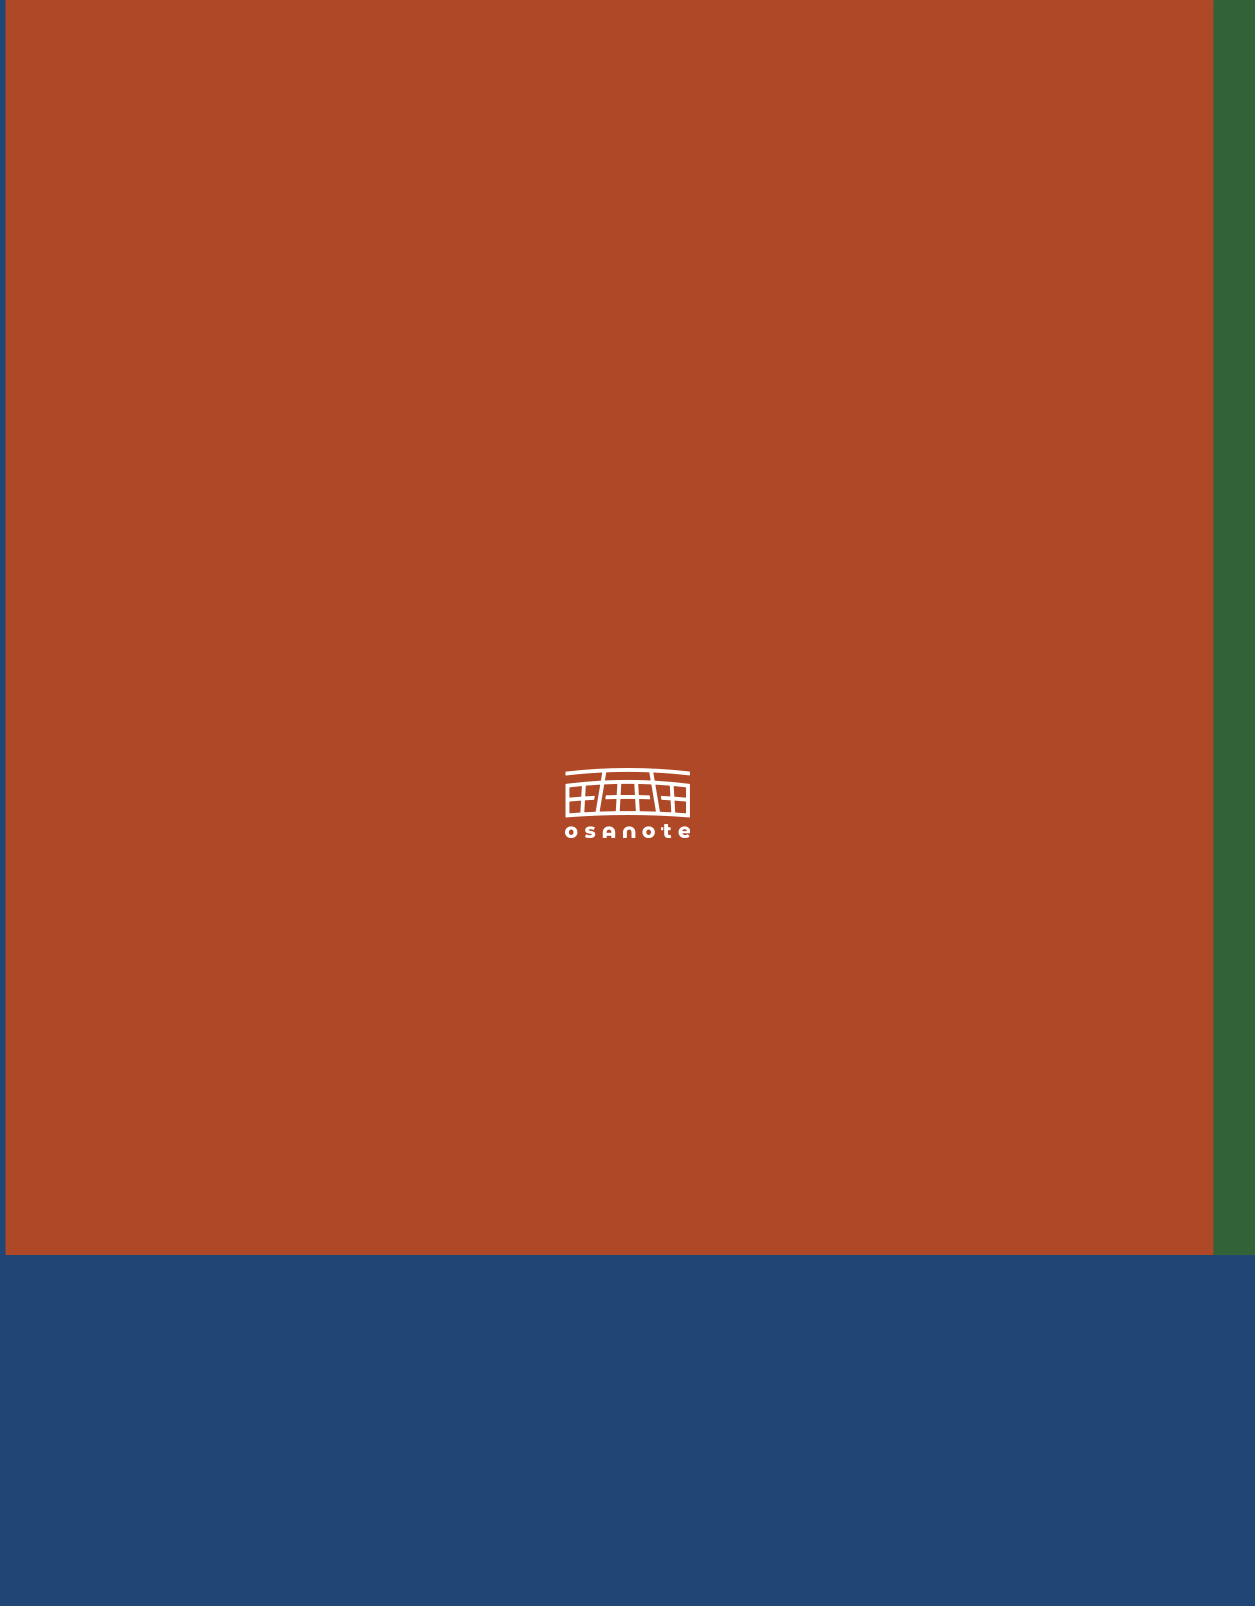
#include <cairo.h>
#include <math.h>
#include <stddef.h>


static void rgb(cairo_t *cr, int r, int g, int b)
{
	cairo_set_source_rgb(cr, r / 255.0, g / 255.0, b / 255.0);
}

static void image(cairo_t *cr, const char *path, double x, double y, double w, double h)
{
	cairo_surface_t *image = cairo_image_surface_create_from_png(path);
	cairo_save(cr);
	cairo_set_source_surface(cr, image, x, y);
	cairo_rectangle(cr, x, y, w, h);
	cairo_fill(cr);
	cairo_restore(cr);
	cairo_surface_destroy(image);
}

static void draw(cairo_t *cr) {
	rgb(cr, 31, 70, 116);
	cairo_paint(cr);
	image(cr, "image0.png", 5, 0, 1250, 1255);
	image(cr, "image1.png", 565, 768, 125, 70);
}

int main(void) {
	cairo_surface_t *surface = cairo_image_surface_create(CAIRO_FORMAT_RGB24, 1255, 1606);
	cairo_t *cr = cairo_create(surface);
	cairo_font_options_t *options = cairo_font_options_create();
	cairo_font_options_set_hint_metrics(options, CAIRO_HINT_METRICS_OFF);
	cairo_font_options_set_hint_style(options, CAIRO_HINT_STYLE_NONE);
	cairo_set_font_options(cr, options);
	cairo_set_miter_limit(cr, 4);
	draw(cr);
	cairo_surface_write_to_png(surface, "render.png");
	cairo_font_options_destroy(options);
	cairo_destroy(cr);
	cairo_surface_destroy(surface);
	return 0;
}
